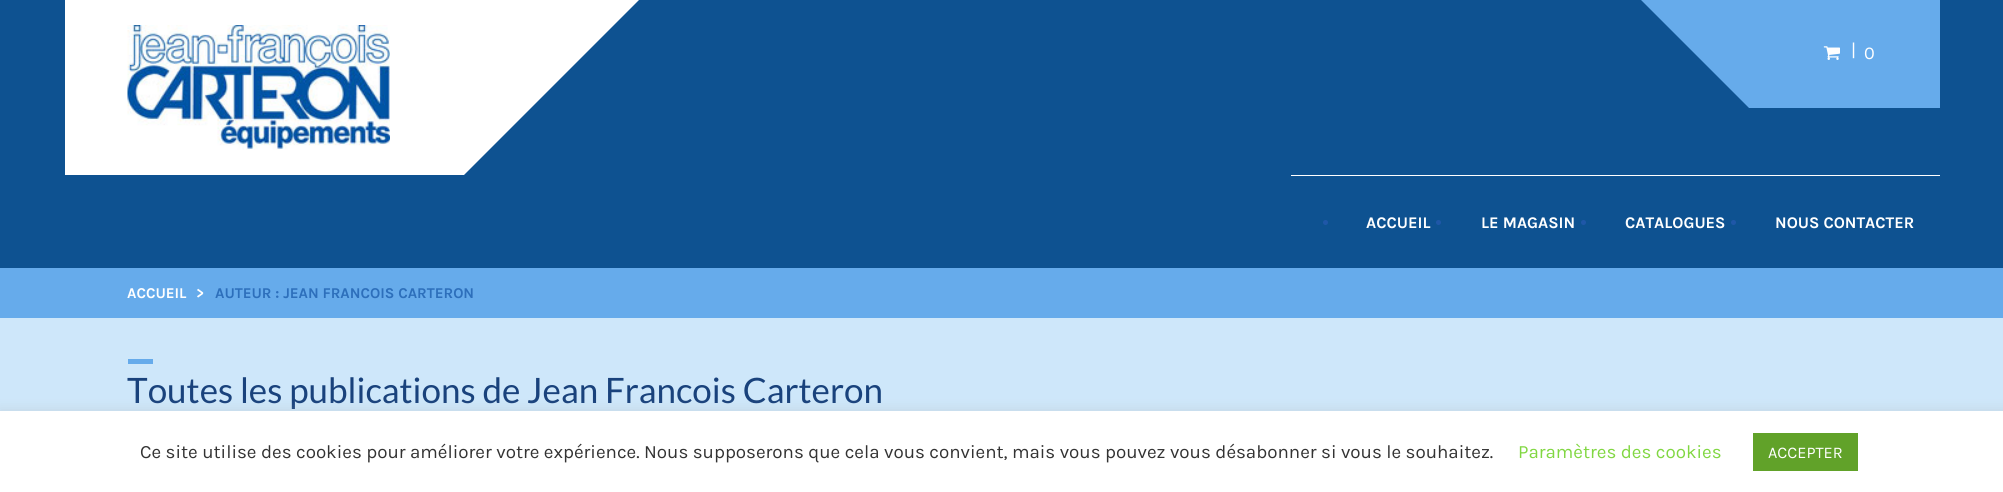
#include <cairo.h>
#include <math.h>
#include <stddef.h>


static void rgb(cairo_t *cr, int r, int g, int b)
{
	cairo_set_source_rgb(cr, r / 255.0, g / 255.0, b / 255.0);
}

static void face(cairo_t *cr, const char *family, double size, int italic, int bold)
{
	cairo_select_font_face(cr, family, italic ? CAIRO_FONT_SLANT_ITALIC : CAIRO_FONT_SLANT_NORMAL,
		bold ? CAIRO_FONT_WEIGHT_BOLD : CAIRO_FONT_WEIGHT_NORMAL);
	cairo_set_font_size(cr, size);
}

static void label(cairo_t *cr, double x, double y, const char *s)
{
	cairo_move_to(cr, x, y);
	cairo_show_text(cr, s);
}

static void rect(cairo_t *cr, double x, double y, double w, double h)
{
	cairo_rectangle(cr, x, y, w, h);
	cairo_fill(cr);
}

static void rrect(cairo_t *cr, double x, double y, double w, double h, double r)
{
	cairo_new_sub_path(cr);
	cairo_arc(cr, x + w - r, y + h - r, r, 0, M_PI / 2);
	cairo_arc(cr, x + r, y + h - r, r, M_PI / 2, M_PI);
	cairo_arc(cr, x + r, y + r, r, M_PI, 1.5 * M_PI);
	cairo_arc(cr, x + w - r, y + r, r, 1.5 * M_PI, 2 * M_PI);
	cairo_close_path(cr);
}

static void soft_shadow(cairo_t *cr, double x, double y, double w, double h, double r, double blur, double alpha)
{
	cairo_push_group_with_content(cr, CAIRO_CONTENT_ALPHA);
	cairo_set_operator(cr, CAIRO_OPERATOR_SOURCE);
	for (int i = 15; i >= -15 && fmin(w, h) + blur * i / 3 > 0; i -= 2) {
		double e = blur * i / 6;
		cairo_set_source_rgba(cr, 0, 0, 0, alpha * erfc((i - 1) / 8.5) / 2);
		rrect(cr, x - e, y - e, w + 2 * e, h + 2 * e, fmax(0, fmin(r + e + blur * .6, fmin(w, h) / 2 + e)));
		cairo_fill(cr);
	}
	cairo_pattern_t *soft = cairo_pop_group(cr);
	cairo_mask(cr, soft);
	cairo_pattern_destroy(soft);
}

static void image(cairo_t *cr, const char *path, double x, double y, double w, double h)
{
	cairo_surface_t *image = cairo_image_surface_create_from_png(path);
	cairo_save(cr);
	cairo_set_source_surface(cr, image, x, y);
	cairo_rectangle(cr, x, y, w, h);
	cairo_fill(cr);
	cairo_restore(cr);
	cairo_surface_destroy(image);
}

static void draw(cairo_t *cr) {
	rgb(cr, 102, 171, 235);
	cairo_paint(cr);
	rgb(cr, 14, 82, 145);
	rect(cr, 0, 0, 2003, 268);
	rgb(cr, 255, 255, 255);
	rect(cr, 65, 0, 249, 175);
	cairo_new_path(cr);
	cairo_move_to(cr, 314, 0);
	cairo_line_to(cr, 639, 0);
	cairo_line_to(cr, 464, 175);
	cairo_line_to(cr, 139, 175);
	cairo_close_path(cr);
	cairo_fill(cr);
	image(cr, "image0.png", 127, 25, 263, 125);
	rgb(cr, 102, 171, 235);
	rect(cr, 1804, 0, 136, 108);
	cairo_new_path(cr);
	cairo_move_to(cr, 1641, 0);
	cairo_line_to(cr, 1804, 0);
	cairo_line_to(cr, 1912, 108);
	cairo_line_to(cr, 1749, 108);
	cairo_close_path(cr);
	cairo_fill(cr);
	image(cr, "image1.png", 1823, 46, 17, 14);
	face(cr, "Karla", 18, 0, 0);
	rgb(cr, 255, 255, 255);
	label(cr, 1851, 56, "|");
	label(cr, 1864, 59, "0");
	rect(cr, 1291, 175, 649, 1);
	rgb(cr, 31, 87, 168);
	cairo_new_path(cr);
	cairo_arc(cr, 1325.5, 222.5, 2.5, 0, 2 * M_PI);
	cairo_fill(cr);
	face(cr, "Karla", 16.25, 0, 1);
	rgb(cr, 255, 255, 255);
	label(cr, 1366, 228, "ACCUEIL");
	rgb(cr, 31, 87, 168);
	cairo_new_path(cr);
	cairo_arc(cr, 1438.5, 222.5, 2.5, 0, 2 * M_PI);
	cairo_fill(cr);
	rgb(cr, 255, 255, 255);
	label(cr, 1481, 228, "LE MAGASIN");
	rgb(cr, 31, 87, 168);
	cairo_new_path(cr);
	cairo_arc(cr, 1583.5, 222.5, 2.5, 0, 2 * M_PI);
	cairo_fill(cr);
	rgb(cr, 255, 255, 255);
	label(cr, 1625, 228, "CATALOGUES");
	rgb(cr, 31, 87, 168);
	cairo_new_path(cr);
	cairo_arc(cr, 1733.5, 222.5, 2.5, 0, 2 * M_PI);
	cairo_fill(cr);
	rgb(cr, 255, 255, 255);
	label(cr, 1775, 228, "NOUS CONTACTER");
	face(cr, "Karla", 15, 0, 1);
	label(cr, 127, 298, "ACCUEIL");
	label(cr, 196, 298, ">");
	rgb(cr, 45, 111, 187);
	label(cr, 215, 298, "AUTEUR : JEAN FRANCOIS CARTERON");
	rgb(cr, 206, 231, 250);
	rect(cr, 0, 318, 2003, 93);
	rgb(cr, 102, 171, 235);
	rect(cr, 128, 359, 25, 5);
	face(cr, "Lato", 35, 0, 0);
	rgb(cr, 25, 66, 124);
	label(cr, 127, 403, "Toutes les publications de Jean Francois Carteron");
	rgb(cr, 172, 171, 171);
	soft_shadow(cr, 0, 410, 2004, 81, 0, 6, 0.3);
	rgb(cr, 255, 255, 255);
	rect(cr, 0, 411, 2003, 81);
	face(cr, "Karla", 18.75, 0, 0);
	rgb(cr, 51, 51, 51);
	label(cr, 140, 458, "Ce site utilise des cookies pour améliorer votre expérience. Nous supposerons que cela vous convient, mais vous pouvez vous désabonner si vous le souhaitez.");
	rgb(cr, 129, 215, 66);
	label(cr, 1518, 458, "Paramètres des cookies");
	rgb(cr, 97, 162, 41);
	rect(cr, 1753, 433, 105, 38);
	face(cr, "Karla", 16.25, 0, 0);
	rgb(cr, 255, 255, 255);
	label(cr, 1768, 458, "ACCEPTER");
}

int main(void) {
	cairo_surface_t *surface = cairo_image_surface_create(CAIRO_FORMAT_RGB24, 2003, 492);
	cairo_t *cr = cairo_create(surface);
	cairo_font_options_t *options = cairo_font_options_create();
	cairo_font_options_set_hint_metrics(options, CAIRO_HINT_METRICS_OFF);
	cairo_font_options_set_hint_style(options, CAIRO_HINT_STYLE_NONE);
	cairo_set_font_options(cr, options);
	cairo_set_miter_limit(cr, 4);
	draw(cr);
	cairo_surface_write_to_png(surface, "render.png");
	cairo_font_options_destroy(options);
	cairo_destroy(cr);
	cairo_surface_destroy(surface);
	return 0;
}
